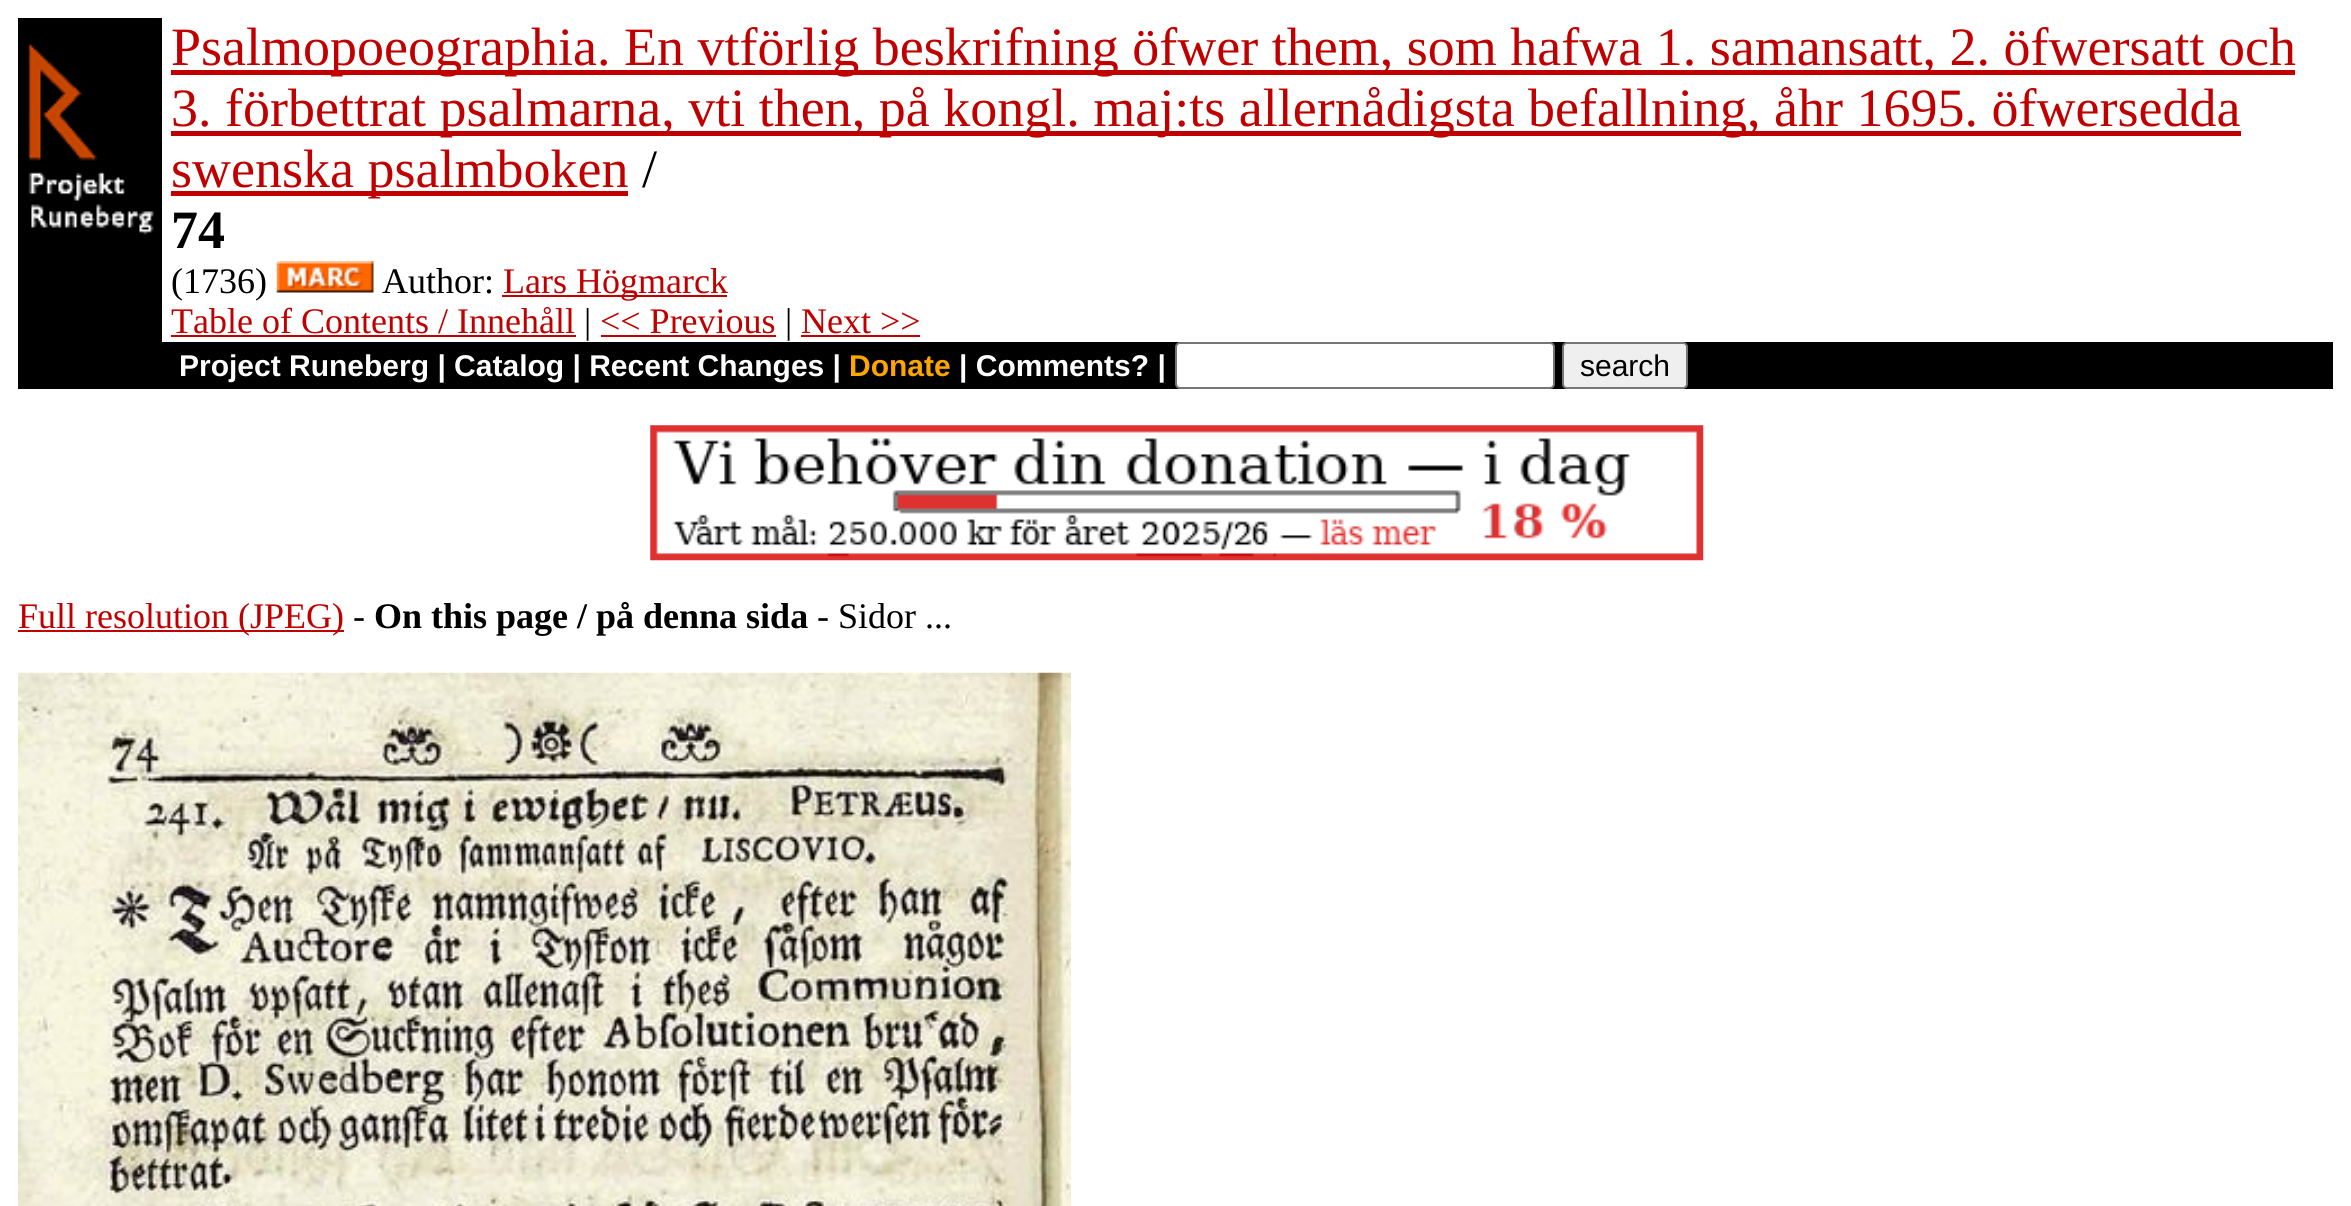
#include <cairo.h>
#include <math.h>
#include <stddef.h>


static void rgb(cairo_t *cr, int r, int g, int b)
{
	cairo_set_source_rgb(cr, r / 255.0, g / 255.0, b / 255.0);
}

static void face(cairo_t *cr, const char *family, double size, int italic, int bold)
{
	cairo_select_font_face(cr, family, italic ? CAIRO_FONT_SLANT_ITALIC : CAIRO_FONT_SLANT_NORMAL,
		bold ? CAIRO_FONT_WEIGHT_BOLD : CAIRO_FONT_WEIGHT_NORMAL);
	cairo_set_font_size(cr, size);
}

static void label(cairo_t *cr, double x, double y, const char *s)
{
	cairo_move_to(cr, x, y);
	cairo_show_text(cr, s);
}

static void rect(cairo_t *cr, double x, double y, double w, double h)
{
	cairo_rectangle(cr, x, y, w, h);
	cairo_fill(cr);
}

static void rrect(cairo_t *cr, double x, double y, double w, double h, double r)
{
	cairo_new_sub_path(cr);
	cairo_arc(cr, x + w - r, y + h - r, r, 0, M_PI / 2);
	cairo_arc(cr, x + r, y + h - r, r, M_PI / 2, M_PI);
	cairo_arc(cr, x + r, y + r, r, M_PI, 1.5 * M_PI);
	cairo_arc(cr, x + w - r, y + r, r, 1.5 * M_PI, 2 * M_PI);
	cairo_close_path(cr);
}

static void image(cairo_t *cr, const char *path, double x, double y, double w, double h)
{
	cairo_surface_t *image = cairo_image_surface_create_from_png(path);
	cairo_save(cr);
	cairo_set_source_surface(cr, image, x, y);
	cairo_rectangle(cr, x, y, w, h);
	cairo_fill(cr);
	cairo_restore(cr);
	cairo_surface_destroy(image);
}

static void draw(cairo_t *cr) {
	rgb(cr, 255, 255, 255);
	cairo_paint(cr);
	rgb(cr, 0, 0, 0);
	rect(cr, 18, 18, 144, 371);
	image(cr, "image0.png", 28, 44, 126, 191);
	rgb(cr, 192, 0, 0);
	rect(cr, 171, 70, 2124, 5);
	face(cr, "Liberation Serif", 54, 0, 0);
	label(cr, 171, 65, "Psalmopoeographia. En vtförlig beskrifning öfwer them, som hafwa 1. samansatt, 2. öfwersatt och");
	rect(cr, 171, 131, 2070, 5);
	label(cr, 171, 126, "3. förbettrat psalmarna, vti then, på kongl. maj:ts allernådigsta befallning, åhr 1695. öfwersedda");
	rect(cr, 171, 191, 457, 5);
	label(cr, 171, 187, "swenska psalmboken");
	rgb(cr, 0, 0, 0);
	label(cr, 642, 187, "/");
	face(cr, "Liberation Serif", 54, 0, 1);
	label(cr, 171, 248, "74");
	face(cr, "Liberation Serif", 36, 0, 0);
	label(cr, 171, 293, "(1736)");
	image(cr, "image1.png", 276, 261, 98, 32);
	label(cr, 382, 293, "Author:");
	rgb(cr, 192, 0, 0);
	rect(cr, 502, 295, 225, 2);
	label(cr, 503, 293, "Lars Högmarck");
	label(cr, 171, 333, "Table of Contents / Innehåll");
	rect(cr, 171, 335, 405, 2);
	rgb(cr, 0, 0, 0);
	label(cr, 584, 333, "|");
	rgb(cr, 192, 0, 0);
	label(cr, 600, 333, "<< Previous");
	rect(cr, 601, 335, 175, 2);
	rgb(cr, 0, 0, 0);
	label(cr, 785, 333, "|");
	rgb(cr, 192, 0, 0);
	label(cr, 801, 333, "Next >>");
	rect(cr, 801, 335, 119, 2);
	rgb(cr, 0, 0, 0);
	rect(cr, 162, 342, 2171, 47);
	face(cr, "Liberation Sans", 30, 0, 1);
	rgb(cr, 255, 255, 255);
	label(cr, 179, 376, "Project Runeberg | Catalog | Recent Changes |");
	rgb(cr, 255, 165, 0);
	label(cr, 849, 376, "Donate");
	rgb(cr, 255, 255, 255);
	label(cr, 959, 376, "| Comments? |");
	rrect(cr, 1176, 343, 378, 45, 4);
	cairo_fill_preserve(cr);
	rgb(cr, 118, 118, 118);
	cairo_stroke(cr);
	rgb(cr, 239, 239, 239);
	rrect(cr, 1563, 343, 124, 45, 4);
	cairo_fill_preserve(cr);
	rgb(cr, 118, 118, 118);
	cairo_stroke(cr);
	face(cr, "Liberation Sans", 30, 0, 0);
	rgb(cr, 0, 0, 0);
	label(cr, 1580, 376, "search");
	image(cr, "image2.png", 650, 425, 1054, 136);
	rgb(cr, 192, 0, 0);
	rect(cr, 18, 630, 326, 2);
	face(cr, "Liberation Serif", 36, 0, 0);
	label(cr, 18, 628, "Full resolution (JPEG)");
	rgb(cr, 0, 0, 0);
	label(cr, 353, 628, "-");
	face(cr, "Liberation Serif", 36, 0, 1);
	label(cr, 374, 628, "On this page / på denna sida");
	face(cr, "Liberation Serif", 36, 0, 0);
	label(cr, 817, 628, "- Sidor ...");
	image(cr, "image3.png", 18, 672, 1053, 534);
}

int main(void) {
	cairo_surface_t *surface = cairo_image_surface_create(CAIRO_FORMAT_RGB24, 2351, 1206);
	cairo_t *cr = cairo_create(surface);
	cairo_font_options_t *options = cairo_font_options_create();
	cairo_font_options_set_hint_metrics(options, CAIRO_HINT_METRICS_OFF);
	cairo_font_options_set_hint_style(options, CAIRO_HINT_STYLE_NONE);
	cairo_set_font_options(cr, options);
	cairo_set_miter_limit(cr, 4);
	draw(cr);
	cairo_surface_write_to_png(surface, "render.png");
	cairo_font_options_destroy(options);
	cairo_destroy(cr);
	cairo_surface_destroy(surface);
	return 0;
}
